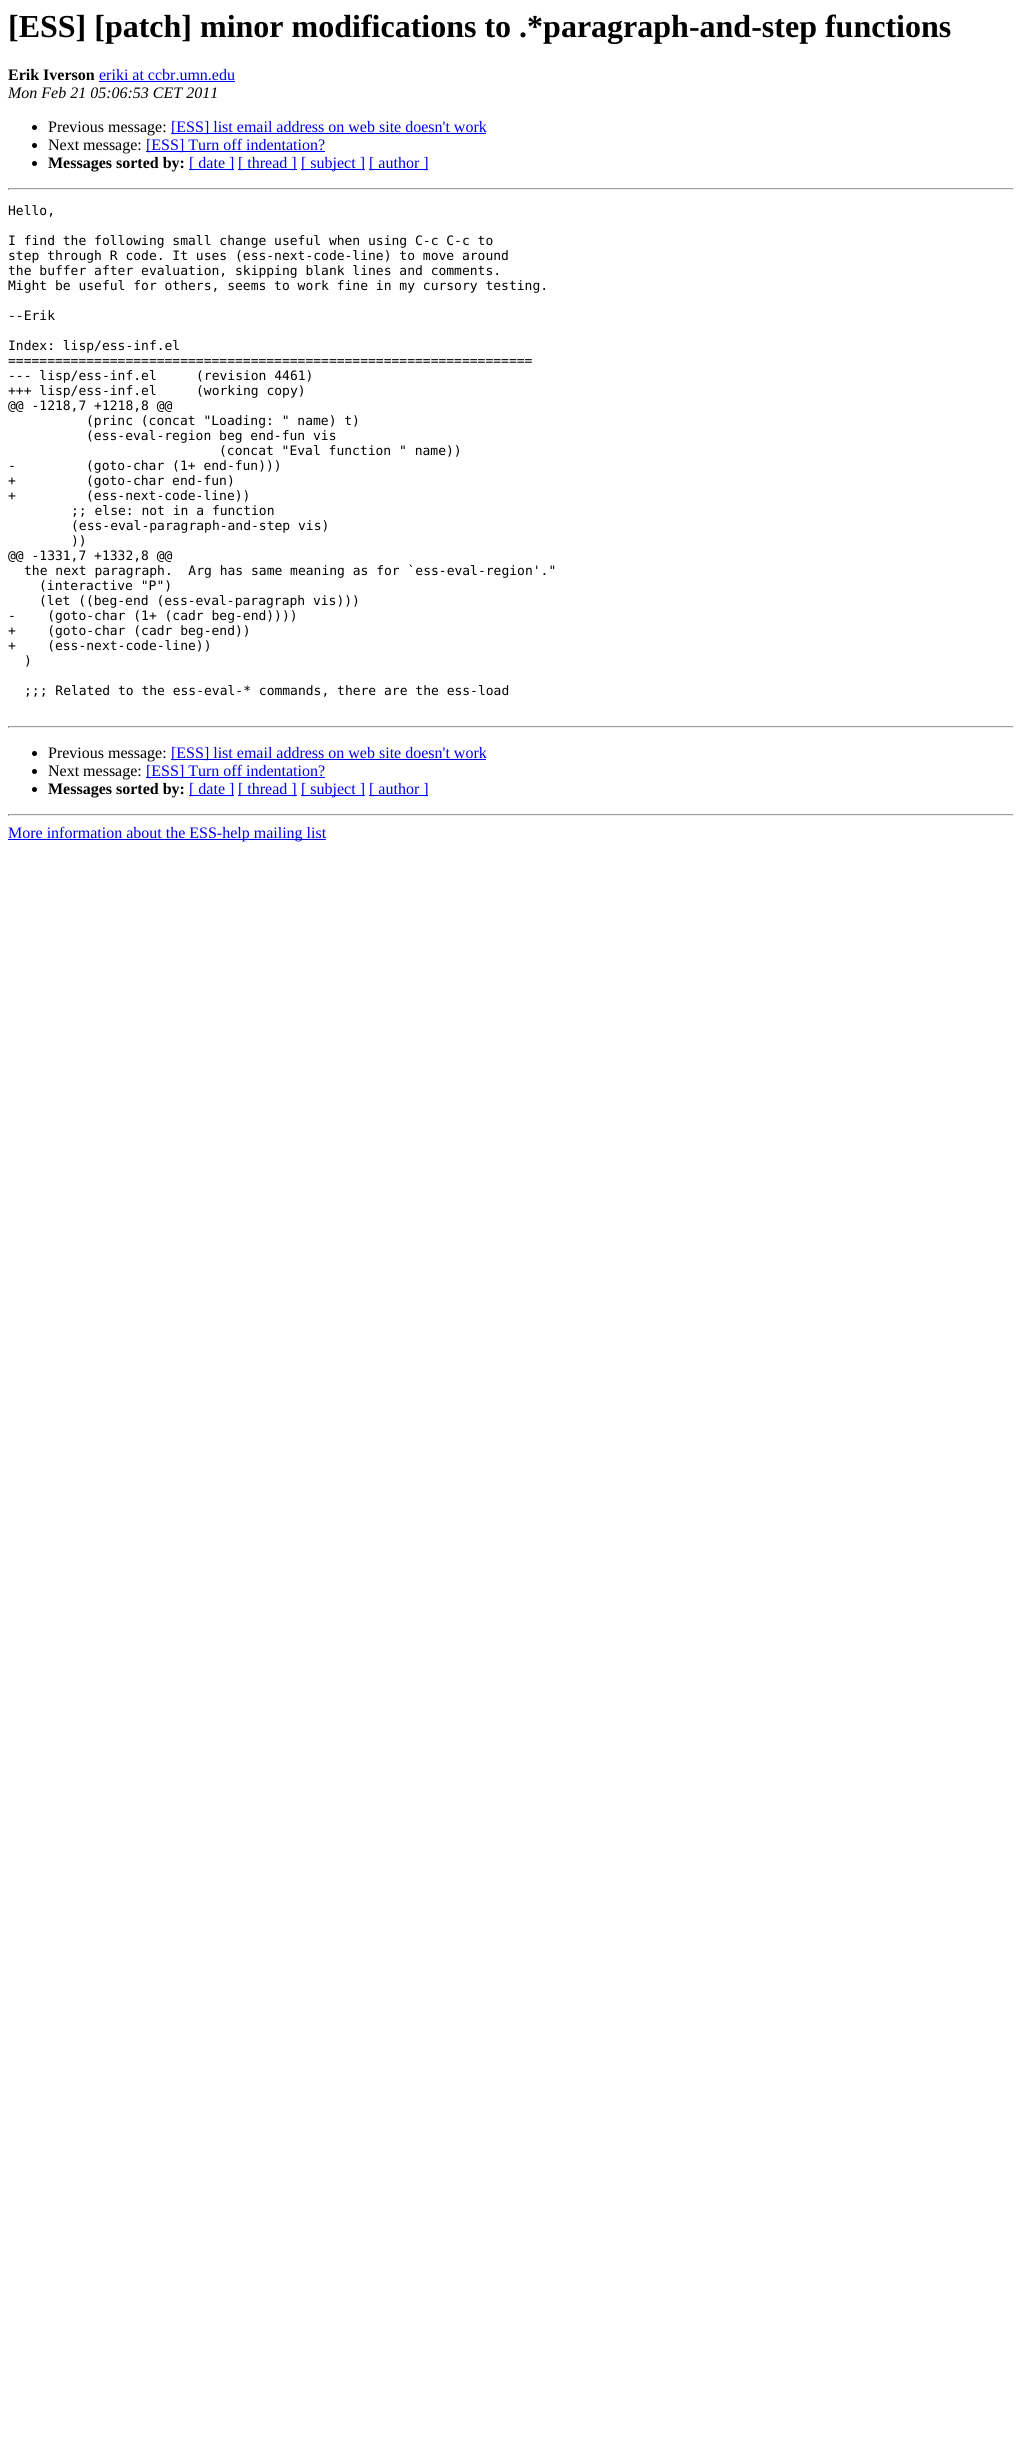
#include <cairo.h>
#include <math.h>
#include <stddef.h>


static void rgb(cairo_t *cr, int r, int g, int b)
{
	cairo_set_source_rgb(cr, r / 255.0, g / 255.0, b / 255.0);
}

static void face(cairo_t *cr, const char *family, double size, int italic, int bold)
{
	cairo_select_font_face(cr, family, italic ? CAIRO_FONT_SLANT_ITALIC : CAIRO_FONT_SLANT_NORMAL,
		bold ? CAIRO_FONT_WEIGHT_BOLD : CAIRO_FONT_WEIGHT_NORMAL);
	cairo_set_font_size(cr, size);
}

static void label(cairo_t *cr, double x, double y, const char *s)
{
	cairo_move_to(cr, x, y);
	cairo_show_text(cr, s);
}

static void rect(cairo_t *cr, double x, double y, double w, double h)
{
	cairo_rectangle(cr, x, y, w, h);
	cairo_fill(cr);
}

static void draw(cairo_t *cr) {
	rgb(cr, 255, 255, 255);
	cairo_paint(cr);
	face(cr, "Liberation Serif", 32, 0, 1);
	rgb(cr, 0, 0, 0);
	label(cr, 8, 37, "[ESS] [patch] minor modifications to .*paragraph-and-step functions");
	face(cr, "Liberation Serif", 16, 0, 1);
	label(cr, 8, 80, "Erik Iverson");
	face(cr, "Liberation Serif", 16, 0, 0);
	rgb(cr, 0, 0, 238);
	label(cr, 99, 80, "eriki at ccbr.umn.edu");
	rect(cr, 99, 81, 136, 1);
	face(cr, "Liberation Serif", 16, 1, 0);
	rgb(cr, 0, 0, 0);
	label(cr, 8, 98, "Mon Feb 21 05:06:53 CET 2011");
	cairo_new_path(cr);
	cairo_arc(cr, 34.5, 127.5, 2.5, 0, 2 * M_PI);
	cairo_fill(cr);
	face(cr, "Liberation Serif", 16, 0, 0);
	label(cr, 48, 132, "Previous message:");
	rgb(cr, 0, 0, 238);
	rect(cr, 171, 133, 315, 1);
	label(cr, 171, 132, "[ESS] list email address on web site doesn't work");
	rgb(cr, 0, 0, 0);
	cairo_new_path(cr);
	cairo_arc(cr, 34.5, 145.5, 2.5, 0, 2 * M_PI);
	cairo_fill(cr);
	label(cr, 48, 150, "Next message:");
	rgb(cr, 0, 0, 238);
	rect(cr, 146, 151, 179, 1);
	label(cr, 146, 150, "[ESS] Turn off indentation?");
	rgb(cr, 0, 0, 0);
	cairo_new_path(cr);
	cairo_arc(cr, 34.5, 163.5, 2.5, 0, 2 * M_PI);
	cairo_fill(cr);
	face(cr, "Liberation Serif", 16, 0, 1);
	label(cr, 48, 168, "Messages sorted by:");
	rgb(cr, 0, 0, 238);
	rect(cr, 189, 169, 45, 1);
	face(cr, "Liberation Serif", 16, 0, 0);
	label(cr, 189, 168, "[ date ]");
	rect(cr, 238, 169, 59, 1);
	label(cr, 238, 168, "[ thread ]");
	rect(cr, 301, 169, 64, 1);
	label(cr, 301, 168, "[ subject ]");
	rect(cr, 369, 169, 59, 1);
	label(cr, 369, 168, "[ author ]");
	rgb(cr, 159, 159, 159);
	rect(cr, 8, 188, 1006, 1);
	rgb(cr, 238, 238, 238);
	rect(cr, 1013, 188, 1, 2);
	rect(cr, 8, 189, 1006, 1);
	rgb(cr, 159, 159, 159);
	rect(cr, 8, 188, 1, 2);
	face(cr, "DejaVu Sans Mono", 13, 0, 0);
	rgb(cr, 0, 0, 0);
	label(cr, 8, 215, "Hello,");
	label(cr, 8, 245, "I find the following small change useful when using C-c C-c to");
	label(cr, 8, 260, "step through R code. It uses (ess-next-code-line) to move around");
	label(cr, 8, 275, "the buffer after evaluation, skipping blank lines and comments.");
	label(cr, 8, 290, "Might be useful for others, seems to work fine in my cursory testing.");
	label(cr, 8, 320, "--Erik");
	label(cr, 8, 350, "Index: lisp/ess-inf.el");
	label(cr, 8, 365, "===================================================================");
	label(cr, 8, 380, "--- lisp/ess-inf.el");
	label(cr, 196, 380, "(revision 4461)");
	label(cr, 8, 395, "+++ lisp/ess-inf.el");
	label(cr, 196, 395, "(working copy)");
	label(cr, 8, 410, "@@ -1218,7 +1218,8 @@");
	label(cr, 86, 425, "(princ (concat \"Loading: \" name) t)");
	label(cr, 86, 440, "(ess-eval-region beg end-fun vis");
	label(cr, 219, 455, "(concat \"Eval function \" name))");
	label(cr, 8, 470, "-");
	label(cr, 86, 470, "(goto-char (1+ end-fun)))");
	label(cr, 8, 485, "+");
	label(cr, 86, 485, "(goto-char end-fun)");
	label(cr, 8, 500, "+");
	label(cr, 86, 500, "(ess-next-code-line))");
	label(cr, 71, 515, ";; else: not in a function");
	label(cr, 71, 530, "(ess-eval-paragraph-and-step vis)");
	label(cr, 71, 545, "))");
	label(cr, 8, 560, "@@ -1331,7 +1332,8 @@");
	label(cr, 24, 575, "the next paragraph.  Arg has same meaning as for `ess-eval-region'.\"");
	label(cr, 39, 590, "(interactive \"P\")");
	label(cr, 39, 605, "(let ((beg-end (ess-eval-paragraph vis)))");
	label(cr, 8, 620, "-    (goto-char (1+ (cadr beg-end))))");
	label(cr, 8, 635, "+    (goto-char (cadr beg-end))");
	label(cr, 8, 650, "+    (ess-next-code-line))");
	label(cr, 24, 665, ")");
	label(cr, 24, 695, ";;; Related to the ess-eval-* commands, there are the ess-load");
	rgb(cr, 159, 159, 159);
	rect(cr, 8, 726, 1006, 1);
	rgb(cr, 238, 238, 238);
	rect(cr, 1013, 726, 1, 2);
	rect(cr, 8, 727, 1006, 1);
	rgb(cr, 159, 159, 159);
	rect(cr, 8, 726, 1, 2);
	rgb(cr, 0, 0, 0);
	cairo_new_path(cr);
	cairo_arc(cr, 34.5, 753.5, 2.5, 0, 2 * M_PI);
	cairo_fill(cr);
	face(cr, "Liberation Serif", 16, 0, 0);
	label(cr, 48, 758, "Previous message:");
	rgb(cr, 0, 0, 238);
	rect(cr, 171, 759, 315, 1);
	label(cr, 171, 758, "[ESS] list email address on web site doesn't work");
	rgb(cr, 0, 0, 0);
	cairo_new_path(cr);
	cairo_arc(cr, 34.5, 771.5, 2.5, 0, 2 * M_PI);
	cairo_fill(cr);
	label(cr, 48, 776, "Next message:");
	rgb(cr, 0, 0, 238);
	rect(cr, 146, 777, 179, 1);
	label(cr, 146, 776, "[ESS] Turn off indentation?");
	rgb(cr, 0, 0, 0);
	cairo_new_path(cr);
	cairo_arc(cr, 34.5, 789.5, 2.5, 0, 2 * M_PI);
	cairo_fill(cr);
	face(cr, "Liberation Serif", 16, 0, 1);
	label(cr, 48, 794, "Messages sorted by:");
	rgb(cr, 0, 0, 238);
	rect(cr, 189, 795, 45, 1);
	face(cr, "Liberation Serif", 16, 0, 0);
	label(cr, 189, 794, "[ date ]");
	rect(cr, 238, 795, 59, 1);
	label(cr, 238, 794, "[ thread ]");
	rect(cr, 301, 795, 64, 1);
	label(cr, 301, 794, "[ subject ]");
	rect(cr, 369, 795, 59, 1);
	label(cr, 369, 794, "[ author ]");
	rgb(cr, 159, 159, 159);
	rect(cr, 8, 814, 1006, 1);
	rgb(cr, 238, 238, 238);
	rect(cr, 1013, 814, 1, 2);
	rect(cr, 8, 815, 1006, 1);
	rgb(cr, 159, 159, 159);
	rect(cr, 8, 814, 1, 2);
	rgb(cr, 0, 0, 238);
	rect(cr, 8, 839, 318, 1);
	label(cr, 8, 838, "More information about the ESS-help mailing list");
}

int main(void) {
	cairo_surface_t *surface = cairo_image_surface_create(CAIRO_FORMAT_RGB24, 1022, 2451);
	cairo_t *cr = cairo_create(surface);
	cairo_font_options_t *options = cairo_font_options_create();
	cairo_font_options_set_hint_metrics(options, CAIRO_HINT_METRICS_OFF);
	cairo_font_options_set_hint_style(options, CAIRO_HINT_STYLE_NONE);
	cairo_set_font_options(cr, options);
	cairo_set_miter_limit(cr, 4);
	draw(cr);
	cairo_surface_write_to_png(surface, "render.png");
	cairo_font_options_destroy(options);
	cairo_destroy(cr);
	cairo_surface_destroy(surface);
	return 0;
}
